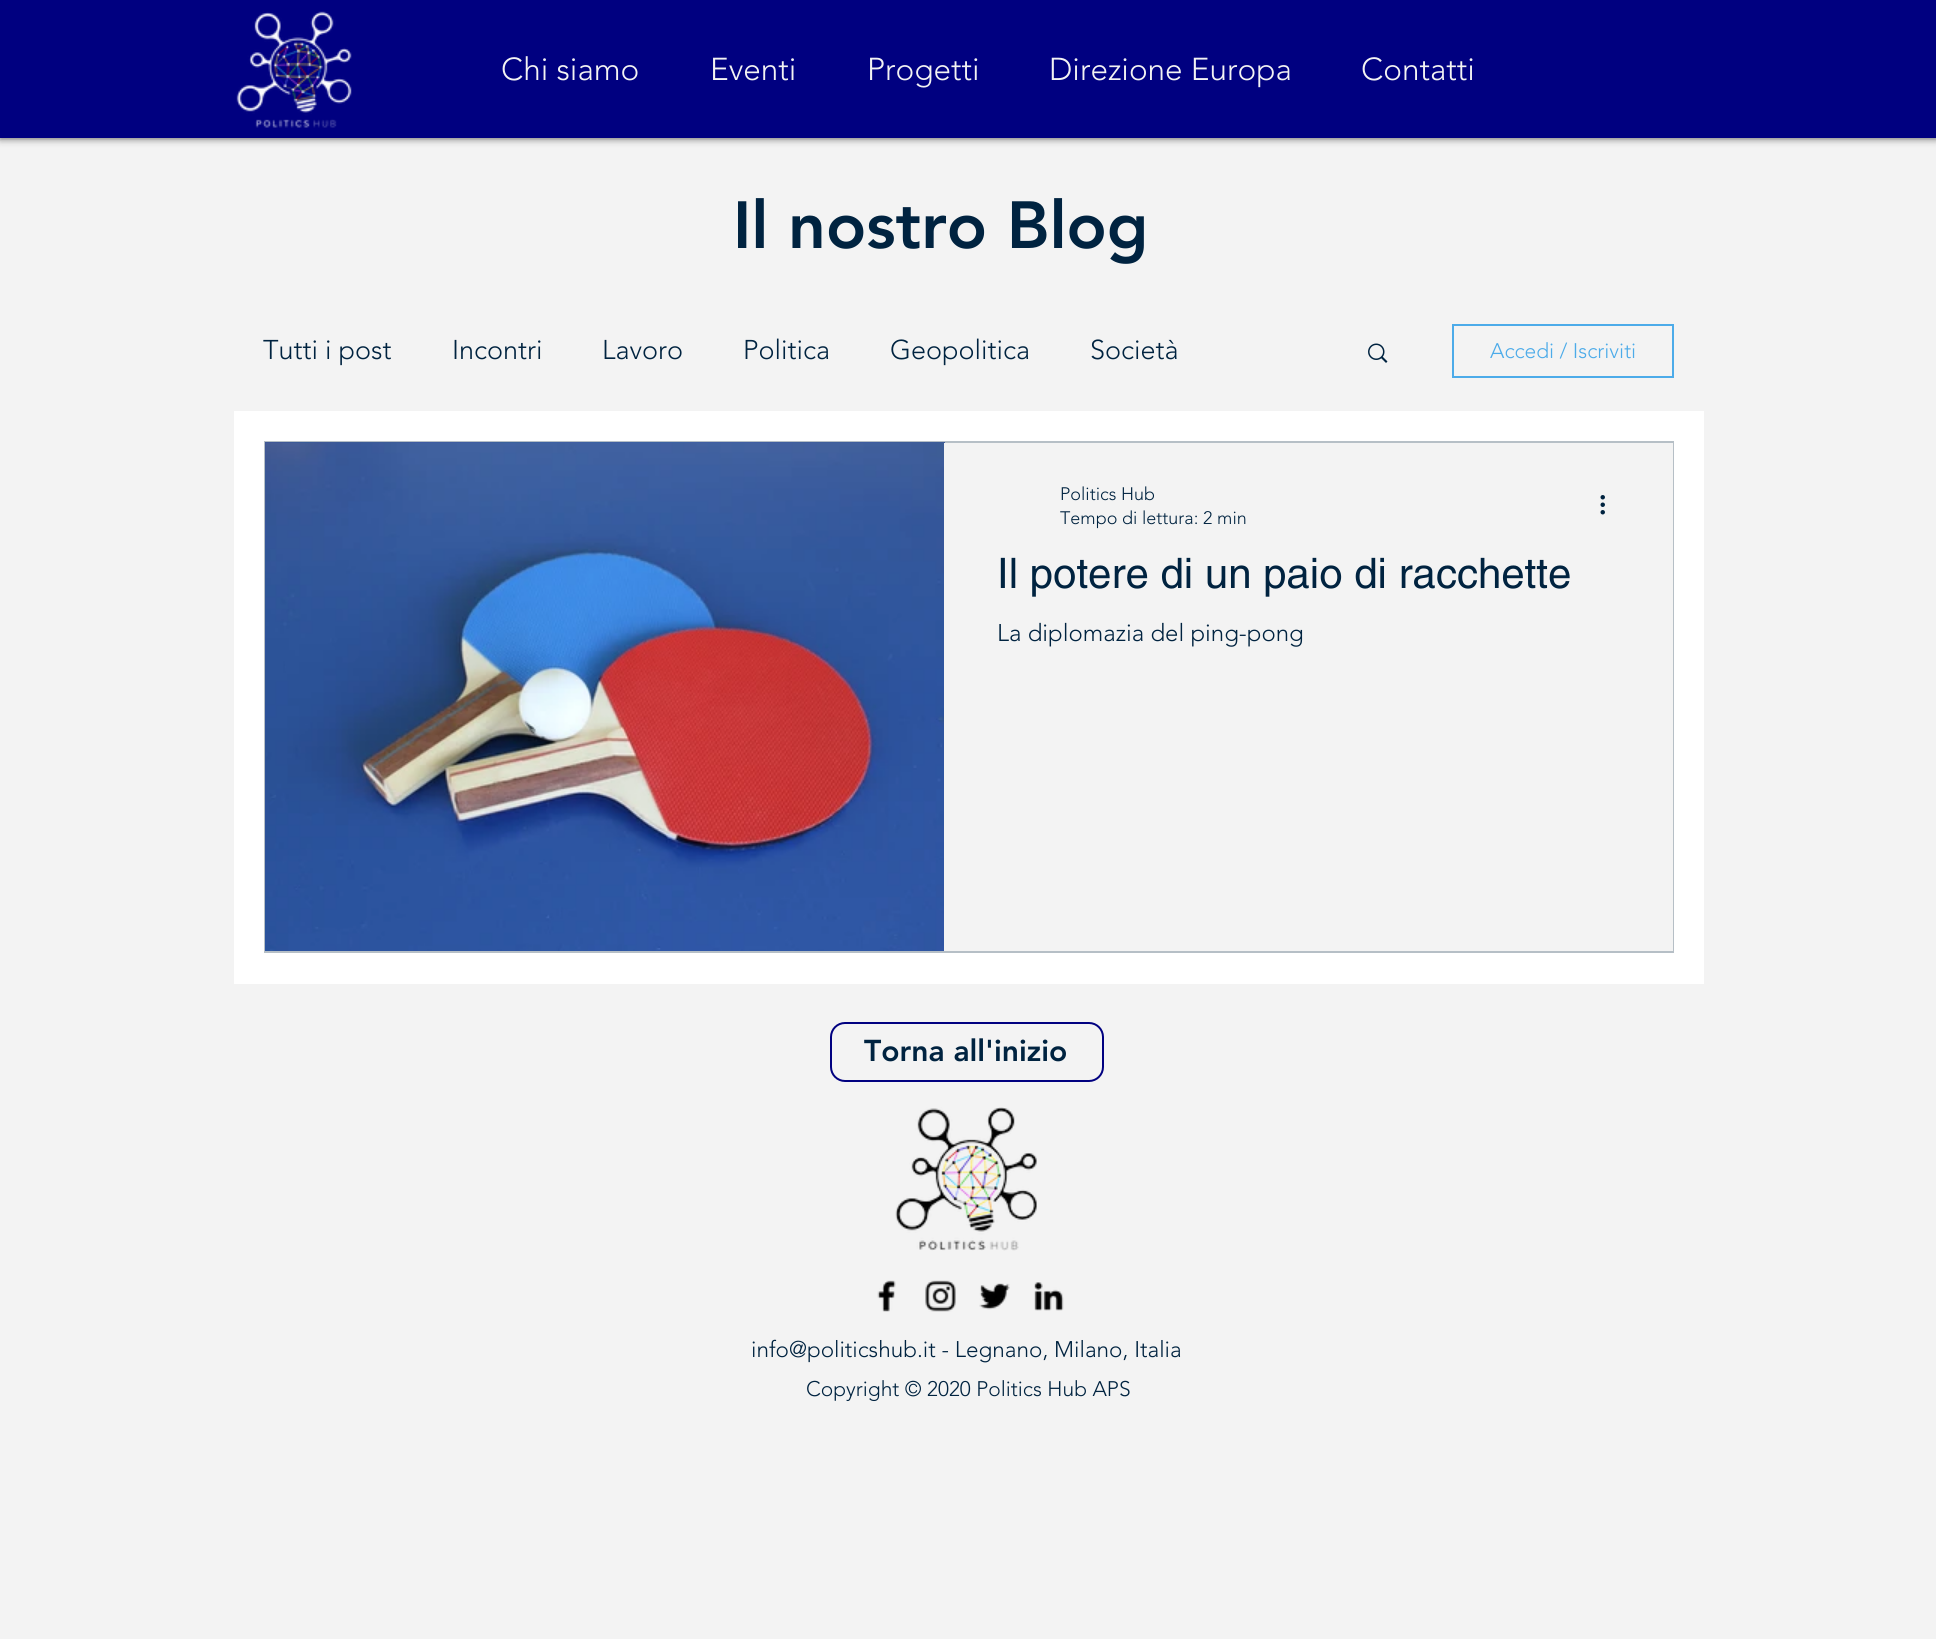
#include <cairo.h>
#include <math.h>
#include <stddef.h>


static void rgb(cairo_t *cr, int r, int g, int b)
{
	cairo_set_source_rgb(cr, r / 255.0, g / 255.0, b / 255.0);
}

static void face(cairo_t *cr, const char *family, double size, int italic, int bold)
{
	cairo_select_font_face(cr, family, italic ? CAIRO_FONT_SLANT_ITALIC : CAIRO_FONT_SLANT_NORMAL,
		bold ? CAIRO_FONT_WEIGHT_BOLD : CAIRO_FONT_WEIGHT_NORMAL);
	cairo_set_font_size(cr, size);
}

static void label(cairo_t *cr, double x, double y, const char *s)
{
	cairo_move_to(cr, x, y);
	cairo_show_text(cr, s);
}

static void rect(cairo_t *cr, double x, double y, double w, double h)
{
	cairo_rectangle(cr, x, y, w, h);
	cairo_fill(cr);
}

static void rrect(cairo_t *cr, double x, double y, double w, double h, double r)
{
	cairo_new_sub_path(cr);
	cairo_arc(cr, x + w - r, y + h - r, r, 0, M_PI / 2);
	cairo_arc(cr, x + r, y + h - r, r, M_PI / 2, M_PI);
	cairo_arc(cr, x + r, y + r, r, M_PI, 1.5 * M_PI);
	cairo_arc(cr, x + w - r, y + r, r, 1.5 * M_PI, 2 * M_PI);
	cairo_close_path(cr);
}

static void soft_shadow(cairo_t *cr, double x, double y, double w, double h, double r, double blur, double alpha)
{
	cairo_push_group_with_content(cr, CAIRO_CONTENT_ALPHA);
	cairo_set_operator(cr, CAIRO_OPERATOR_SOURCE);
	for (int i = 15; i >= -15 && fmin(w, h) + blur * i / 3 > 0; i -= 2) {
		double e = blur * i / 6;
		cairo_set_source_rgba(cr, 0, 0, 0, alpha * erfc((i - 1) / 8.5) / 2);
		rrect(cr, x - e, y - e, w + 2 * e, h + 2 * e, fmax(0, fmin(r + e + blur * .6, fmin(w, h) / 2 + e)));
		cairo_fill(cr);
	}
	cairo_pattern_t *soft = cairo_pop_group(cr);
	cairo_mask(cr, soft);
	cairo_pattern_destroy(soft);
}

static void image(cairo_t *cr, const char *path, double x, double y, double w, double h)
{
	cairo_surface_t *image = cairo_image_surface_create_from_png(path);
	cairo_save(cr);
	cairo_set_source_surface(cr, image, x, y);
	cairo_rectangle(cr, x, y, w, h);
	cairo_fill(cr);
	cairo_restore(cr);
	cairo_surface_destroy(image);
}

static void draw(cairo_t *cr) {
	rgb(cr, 243, 243, 243);
	cairo_paint(cr);
	rgb(cr, 0, 0, 0);
	soft_shadow(cr, 0, 0, 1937, 138, 0, 4, 0.7);
	rgb(cr, 0, 0, 128);
	rect(cr, 0, 0, 1936, 138);
	image(cr, "image0.png", 236, 11, 116, 117);
	face(cr, "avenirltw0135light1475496 Light", 31.5, 0, 0);
	rgb(cr, 243, 243, 243);
	label(cr, 501, 80, "Chi siamo");
	label(cr, 710, 80, "Eventi");
	label(cr, 867, 80, "Progetti");
	label(cr, 1049, 80, "Direzione Europa");
	label(cr, 1361, 80, "Contatti");
	face(cr, "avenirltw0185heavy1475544 Black", 66, 0, 0);
	rgb(cr, 0, 35, 64);
	label(cr, 733, 248, "Il nostro Blog");
	rgb(cr, 255, 255, 255);
	rect(cr, 234, 411, 1470, 573);
	face(cr, "avenirltw0135light1475496 Light", 27, 0, 0);
	rgb(cr, 0, 35, 64);
	label(cr, 263, 359, "Tutti i post");
	label(cr, 452, 359, "Incontri");
	label(cr, 602, 359, "Lavoro");
	label(cr, 743, 359, "Politica");
	label(cr, 890, 359, "Geopolitica");
	label(cr, 1090, 359, "Società");
	image(cr, "image1.png", 1368, 343, 20, 20);
	cairo_rectangle(cr, 1453, 325, 220, 52);
	rgb(cr, 76, 171, 233);
	cairo_stroke(cr);
	face(cr, "avenirltw0135light1475496 Light", 21, 0, 0);
	label(cr, 1490, 358, "Accedi / Iscriviti");
	cairo_rectangle(cr, 265, 442, 1408, 510);
	rgb(cr, 182, 191, 198);
	cairo_stroke(cr);
	image(cr, "image2.png", 265, 442, 680, 509);
	image(cr, "image3.png", 266, 443, 678, 508);
	rgb(cr, 243, 243, 243);
	rect(cr, 944, 443, 729, 508);
	face(cr, "avenirltw0135light1475496 Light", 18, 0, 0);
	rgb(cr, 0, 35, 64);
	label(cr, 1060, 500, "Politics Hub");
	label(cr, 1060, 524, "Tempo di lettura: 2 min");
	image(cr, "image4.png", 1600, 495, 5, 20);
	face(cr, "helvetica", 42, 0, 0);
	label(cr, 997, 588, "Il potere di un paio di racchette");
	face(cr, "avenirltw0135light1475496 Light", 24, 0, 0);
	label(cr, 997, 641, "La diplomazia del ping-pong");
	rrect(cr, 831, 1023, 272, 58, 14);
	rgb(cr, 0, 0, 128);
	cairo_stroke(cr);
	face(cr, "avenirltw0185heavy1475544 Black", 30, 0, 0);
	rgb(cr, 0, 35, 64);
	label(cr, 864, 1061, "Torna all'inizio");
	image(cr, "image5.png", 895, 1107, 142, 144);
	image(cr, "image6.png", 877, 1280, 19, 32);
	image(cr, "image7.png", 925, 1280, 31, 32);
	image(cr, "image8.png", 979, 1283, 31, 27);
	image(cr, "image9.png", 1034, 1282, 30, 29);
	face(cr, "avenirltw0135light1475496 Light", 22.5, 0, 0);
	label(cr, 751, 1357, "info@politicshub.it - Legnano, Milano, Italia");
	face(cr, "avenirltw0135light1475496 Light", 21, 0, 0);
	label(cr, 806, 1396, "Copyright © 2020 Politics Hub APS");
}

int main(void) {
	cairo_surface_t *surface = cairo_image_surface_create(CAIRO_FORMAT_RGB24, 1936, 1639);
	cairo_t *cr = cairo_create(surface);
	cairo_font_options_t *options = cairo_font_options_create();
	cairo_font_options_set_hint_metrics(options, CAIRO_HINT_METRICS_OFF);
	cairo_font_options_set_hint_style(options, CAIRO_HINT_STYLE_NONE);
	cairo_set_font_options(cr, options);
	cairo_set_miter_limit(cr, 4);
	draw(cr);
	cairo_surface_write_to_png(surface, "render.png");
	cairo_font_options_destroy(options);
	cairo_destroy(cr);
	cairo_surface_destroy(surface);
	return 0;
}
